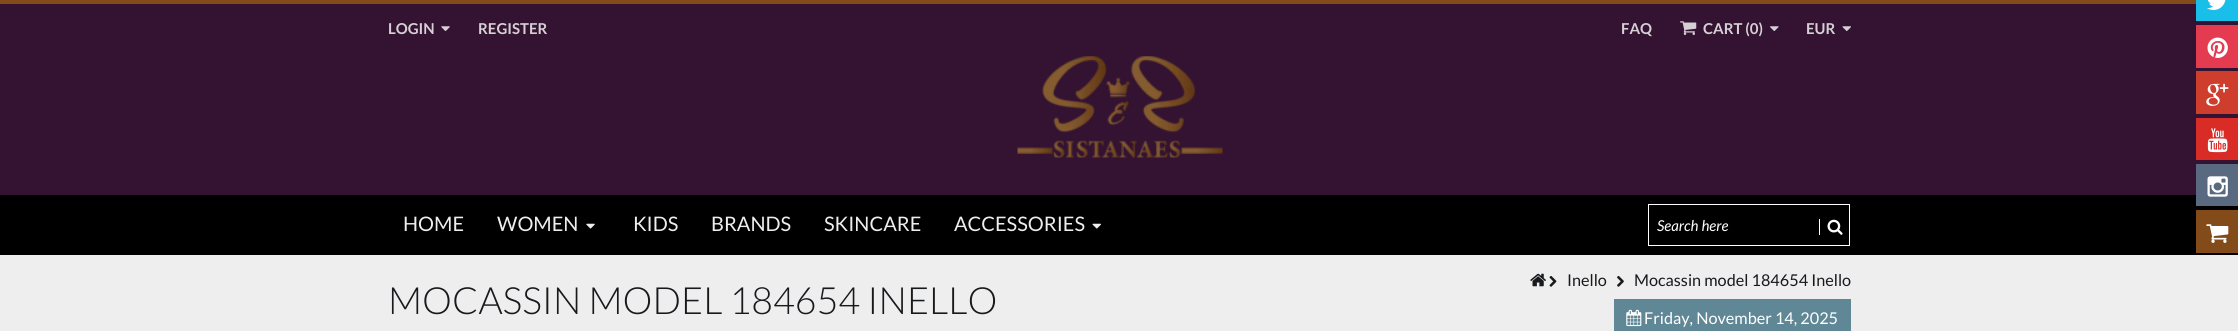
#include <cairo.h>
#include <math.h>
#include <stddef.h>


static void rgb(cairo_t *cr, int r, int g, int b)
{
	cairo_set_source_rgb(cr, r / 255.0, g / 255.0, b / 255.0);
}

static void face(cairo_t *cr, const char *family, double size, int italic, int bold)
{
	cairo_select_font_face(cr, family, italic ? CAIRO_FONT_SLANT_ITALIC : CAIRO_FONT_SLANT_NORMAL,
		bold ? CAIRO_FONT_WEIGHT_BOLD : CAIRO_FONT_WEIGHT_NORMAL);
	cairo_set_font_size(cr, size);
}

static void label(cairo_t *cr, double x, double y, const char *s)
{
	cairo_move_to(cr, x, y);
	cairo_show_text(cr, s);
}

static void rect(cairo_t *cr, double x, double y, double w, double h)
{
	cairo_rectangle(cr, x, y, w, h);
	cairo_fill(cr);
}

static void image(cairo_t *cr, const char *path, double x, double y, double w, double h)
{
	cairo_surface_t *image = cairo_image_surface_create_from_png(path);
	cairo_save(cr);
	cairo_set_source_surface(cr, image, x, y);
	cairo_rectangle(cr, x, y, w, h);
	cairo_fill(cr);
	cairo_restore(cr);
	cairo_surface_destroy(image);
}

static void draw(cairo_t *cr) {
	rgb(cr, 238, 238, 238);
	cairo_paint(cr);
	rgb(cr, 51, 19, 49);
	rect(cr, 0, 4, 2238, 191);
	rgb(cr, 132, 75, 26);
	rect(cr, 0, 0, 2196, 4);
	face(cr, "Lato", 15, 0, 1);
	rgb(cr, 214, 208, 214);
	label(cr, 388, 34, "LOGIN");
	image(cr, "image0.png", 441, 26, 9, 5);
	label(cr, 478, 34, "REGISTER");
	label(cr, 1621, 34, "FAQ");
	image(cr, "image1.png", 1680, 21, 17, 14);
	label(cr, 1703, 34, "CART (0)");
	image(cr, "image2.png", 1770, 26, 9, 5);
	label(cr, 1806, 34, "EUR");
	image(cr, "image3.png", 1842, 26, 9, 5);
	image(cr, "image4.png", 1017, 56, 206, 102);
	rgb(cr, 0, 0, 0);
	rect(cr, 0, 195, 2238, 60);
	face(cr, "Lato", 20, 0, 0);
	rgb(cr, 238, 238, 238);
	label(cr, 403, 231, "HOME");
	label(cr, 497, 231, "WOMEN");
	image(cr, "image5.png", 586, 223, 9, 6);
	label(cr, 633, 231, "KIDS");
	label(cr, 711, 231, "BRANDS");
	label(cr, 824, 231, "SKINCARE");
	label(cr, 954, 231, "ACCESSORIES");
	image(cr, "image6.png", 1092, 223, 9, 6);
	cairo_rectangle(cr, 1648.5, 204.5, 201, 41);
	rgb(cr, 255, 255, 255);
	cairo_set_line_width(cr, 1);
	cairo_stroke(cr);
	face(cr, "Lato", 15, 1, 0);
	label(cr, 1657, 231, "Search here");
	rect(cr, 1819, 219, 1, 16);
	image(cr, "image7.png", 1827, 219, 16, 16);
	rgb(cr, 25, 191, 232);
	rect(cr, 2196, 0, 42, 21);
	image(cr, "image8.png", 2207, 0, 19, 10);
	rgb(cr, 229, 59, 81);
	rect(cr, 2196, 25, 42, 43);
	image(cr, "image9.png", 2207, 37, 21, 21);
	rgb(cr, 207, 62, 44);
	rect(cr, 2196, 71, 42, 43);
	image(cr, "image10.png", 2206, 83, 23, 23);
	rgb(cr, 217, 44, 39);
	rect(cr, 2196, 118, 42, 42);
	image(cr, "image11.png", 2207, 128, 21, 25);
	rgb(cr, 88, 105, 128);
	rect(cr, 2196, 164, 42, 42);
	image(cr, "image12.png", 2207, 176, 21, 21);
	rgb(cr, 132, 75, 26);
	rect(cr, 2196, 210, 42, 43);
	image(cr, "image13.png", 2206, 224, 23, 19);
	face(cr, "Lato Light", 37.5, 0, 0);
	rgb(cr, 24, 25, 29);
	label(cr, 388, 314, "MOCASSIN MODEL 184654 INELLO");
	image(cr, "image14.png", 1530, 273, 16, 14);
	image(cr, "image15.png", 1549, 276, 8, 11);
	face(cr, "Lato", 16.25, 0, 0);
	label(cr, 1567, 286, "Inello");
	image(cr, "image16.png", 1617, 275, 7, 12);
	label(cr, 1634, 286, "Mocassin model 184654 Inello");
	rgb(cr, 95, 135, 150);
	rect(cr, 1614, 299, 237, 32);
	image(cr, "image17.png", 1626, 309, 16, 18);
	rgb(cr, 255, 255, 255);
	label(cr, 1644, 324, "Friday, November 14, 2025");
}

int main(void) {
	cairo_surface_t *surface = cairo_image_surface_create(CAIRO_FORMAT_RGB24, 2238, 331);
	cairo_t *cr = cairo_create(surface);
	cairo_font_options_t *options = cairo_font_options_create();
	cairo_font_options_set_hint_metrics(options, CAIRO_HINT_METRICS_OFF);
	cairo_font_options_set_hint_style(options, CAIRO_HINT_STYLE_NONE);
	cairo_set_font_options(cr, options);
	cairo_set_miter_limit(cr, 4);
	draw(cr);
	cairo_surface_write_to_png(surface, "render.png");
	cairo_font_options_destroy(options);
	cairo_destroy(cr);
	cairo_surface_destroy(surface);
	return 0;
}
